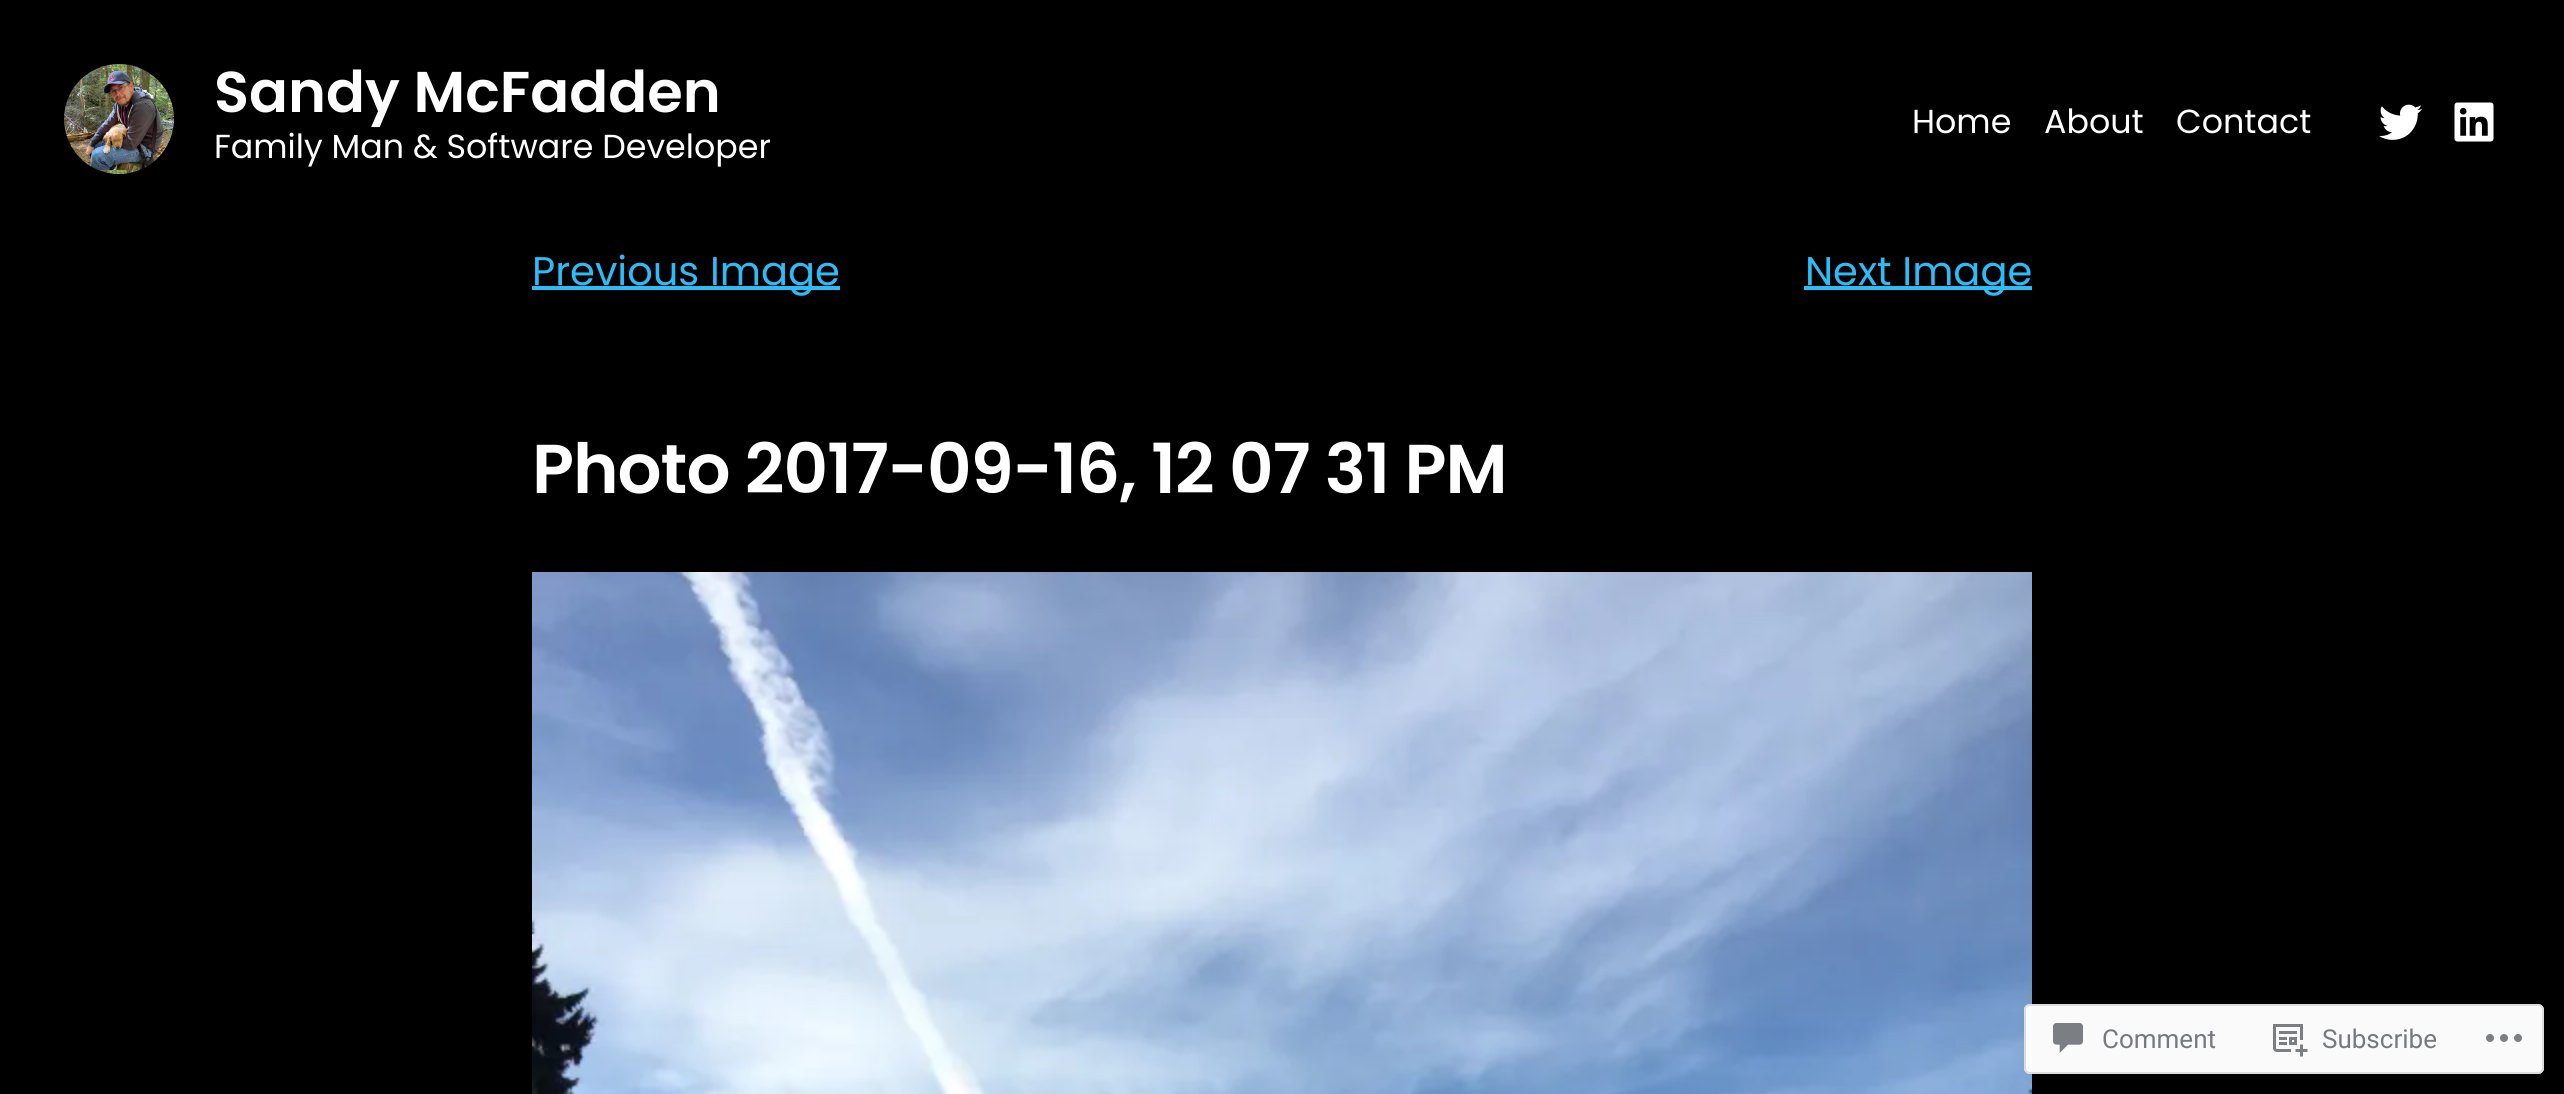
#include <cairo.h>
#include <math.h>
#include <stddef.h>


static void rgb(cairo_t *cr, int r, int g, int b)
{
	cairo_set_source_rgb(cr, r / 255.0, g / 255.0, b / 255.0);
}

static void face(cairo_t *cr, const char *family, double size, int italic, int bold)
{
	cairo_select_font_face(cr, family, italic ? CAIRO_FONT_SLANT_ITALIC : CAIRO_FONT_SLANT_NORMAL,
		bold ? CAIRO_FONT_WEIGHT_BOLD : CAIRO_FONT_WEIGHT_NORMAL);
	cairo_set_font_size(cr, size);
}

static void label(cairo_t *cr, double x, double y, const char *s)
{
	cairo_move_to(cr, x, y);
	cairo_show_text(cr, s);
}

static void tracked(cairo_t *cr, double x, double y, const char *s, double letter, double word)
{
	cairo_move_to(cr, x, y);
	while (*s) {
		char ch[5] = {0};
		int n = 0;
		do ch[n++] = *s++; while ((*s & 0xC0) == 0x80);
		cairo_show_text(cr, ch);
		cairo_rel_move_to(cr, letter + word * (*ch == ' '), 0);
	}
}

static void rect(cairo_t *cr, double x, double y, double w, double h)
{
	cairo_rectangle(cr, x, y, w, h);
	cairo_fill(cr);
}

static void rrect(cairo_t *cr, double x, double y, double w, double h, double r)
{
	cairo_new_sub_path(cr);
	cairo_arc(cr, x + w - r, y + h - r, r, 0, M_PI / 2);
	cairo_arc(cr, x + r, y + h - r, r, M_PI / 2, M_PI);
	cairo_arc(cr, x + r, y + r, r, M_PI, 1.5 * M_PI);
	cairo_arc(cr, x + w - r, y + r, r, 1.5 * M_PI, 2 * M_PI);
	cairo_close_path(cr);
}

static void image(cairo_t *cr, const char *path, double x, double y, double w, double h)
{
	cairo_surface_t *image = cairo_image_surface_create_from_png(path);
	cairo_save(cr);
	cairo_set_source_surface(cr, image, x, y);
	cairo_rectangle(cr, x, y, w, h);
	cairo_fill(cr);
	cairo_restore(cr);
	cairo_surface_destroy(image);
}

static void draw(cairo_t *cr) {
	rgb(cr, 0, 0, 0);
	cairo_paint(cr);
	image(cr, "image0.png", 64, 64, 110, 110);
	face(cr, "Poppins SemiBold", 57.5, 0, 0);
	rgb(cr, 255, 255, 255);
	label(cr, 214, 112, "Sandy McFadden");
	face(cr, "Poppins", 33.3, 0, 0);
	label(cr, 214, 158, "Family Man & Software Developer");
	label(cr, 1912, 133, "Home");
	label(cr, 2044, 133, "About");
	label(cr, 2176, 133, "Contact");
	image(cr, "image1.png", 2379, 104, 43, 36);
	image(cr, "image2.png", 2454, 102, 40, 40);
	rgb(cr, 43, 189, 247);
	rect(cr, 532, 286, 308, 4);
	face(cr, "Poppins", 40, 0, 0);
	label(cr, 532, 285, "Previous Image");
	rect(cr, 1804, 286, 228, 4);
	label(cr, 1805, 285, "Next Image");
	face(cr, "Poppins SemiBold", 69.1, 0, 0);
	rgb(cr, 255, 255, 255);
	tracked(cr, 532, 493, "Photo 2017-09-16, 12 07 31 PM", -1.05, 0);
	image(cr, "image3.png", 532, 572, 1500, 522);
	cairo_set_source_rgba(cr, 1, 1, 1, 0.98);
	rrect(cr, 2024, 1004, 520, 70, 6);
	cairo_fill(cr);
	rrect(cr, 2025, 1005, 518, 68, 5);
	cairo_set_source_rgba(cr, 0.863, 0.863, 0.871, 0.98);
	cairo_stroke(cr);
	image(cr, "image4.png", 2053, 1023, 30, 30);
	face(cr, "Roboto", 26, 0, 0);
	rgb(cr, 118, 122, 127);
	label(cr, 2102, 1048, "Comment");
	image(cr, "image5.png", 2273, 1024, 35, 33);
	label(cr, 2322, 1048, "Subscribe");
	image(cr, "image6.png", 2486, 1034, 36, 8);
}

int main(void) {
	cairo_surface_t *surface = cairo_image_surface_create(CAIRO_FORMAT_RGB24, 2564, 1094);
	cairo_t *cr = cairo_create(surface);
	cairo_font_options_t *options = cairo_font_options_create();
	cairo_font_options_set_hint_metrics(options, CAIRO_HINT_METRICS_OFF);
	cairo_font_options_set_hint_style(options, CAIRO_HINT_STYLE_NONE);
	cairo_set_font_options(cr, options);
	cairo_set_miter_limit(cr, 4);
	draw(cr);
	cairo_surface_write_to_png(surface, "render.png");
	cairo_font_options_destroy(options);
	cairo_destroy(cr);
	cairo_surface_destroy(surface);
	return 0;
}
